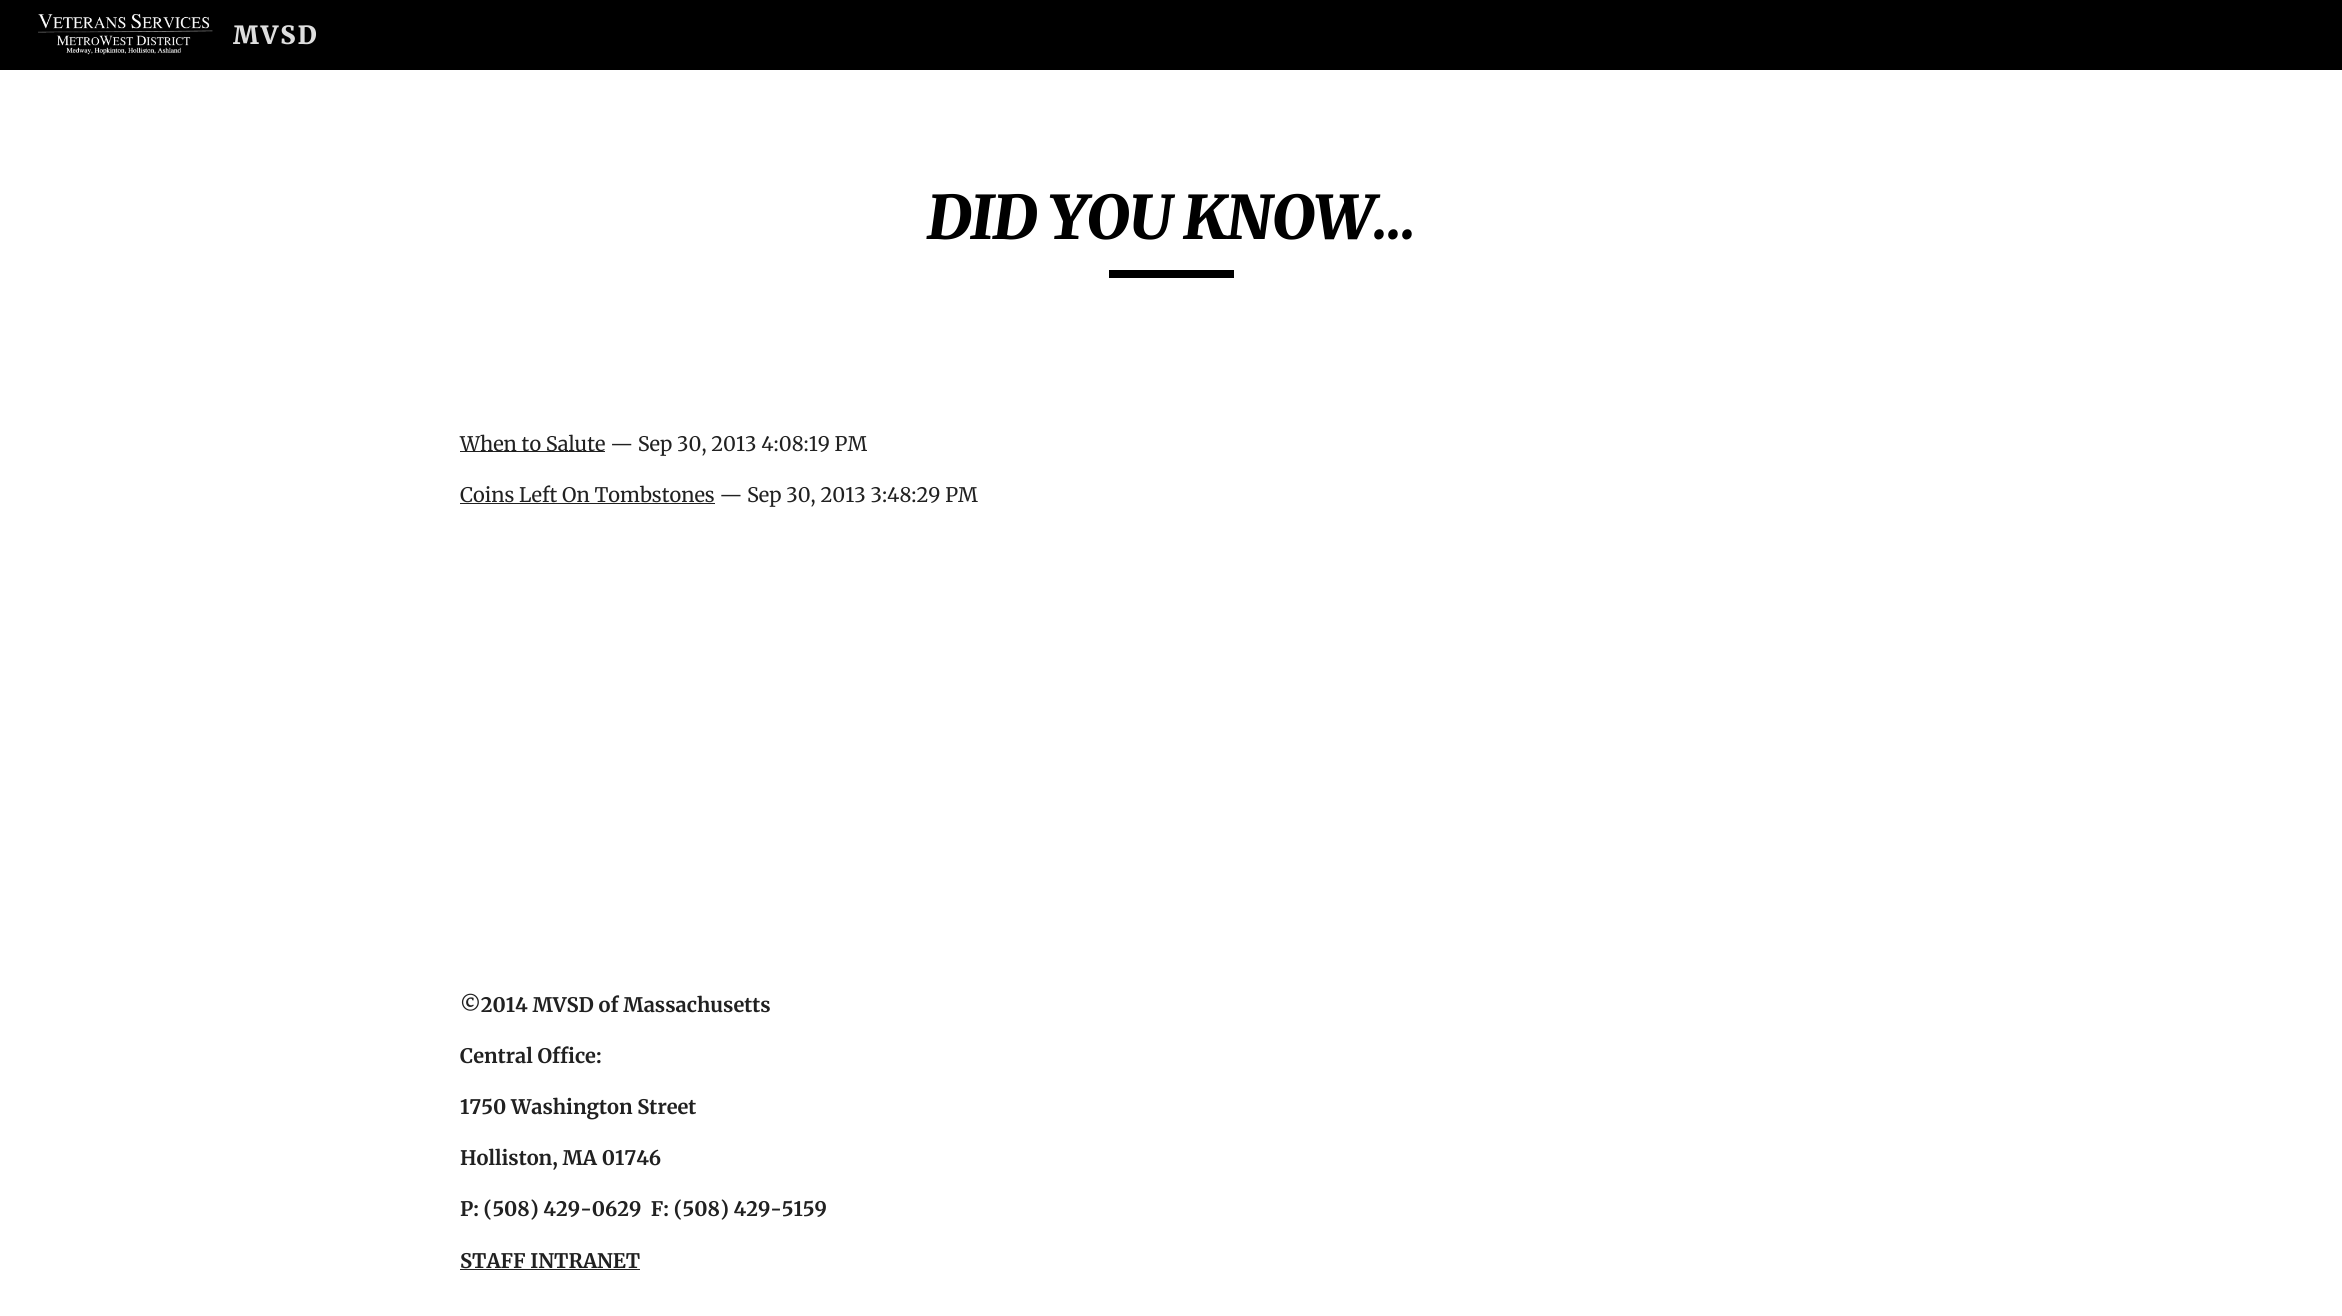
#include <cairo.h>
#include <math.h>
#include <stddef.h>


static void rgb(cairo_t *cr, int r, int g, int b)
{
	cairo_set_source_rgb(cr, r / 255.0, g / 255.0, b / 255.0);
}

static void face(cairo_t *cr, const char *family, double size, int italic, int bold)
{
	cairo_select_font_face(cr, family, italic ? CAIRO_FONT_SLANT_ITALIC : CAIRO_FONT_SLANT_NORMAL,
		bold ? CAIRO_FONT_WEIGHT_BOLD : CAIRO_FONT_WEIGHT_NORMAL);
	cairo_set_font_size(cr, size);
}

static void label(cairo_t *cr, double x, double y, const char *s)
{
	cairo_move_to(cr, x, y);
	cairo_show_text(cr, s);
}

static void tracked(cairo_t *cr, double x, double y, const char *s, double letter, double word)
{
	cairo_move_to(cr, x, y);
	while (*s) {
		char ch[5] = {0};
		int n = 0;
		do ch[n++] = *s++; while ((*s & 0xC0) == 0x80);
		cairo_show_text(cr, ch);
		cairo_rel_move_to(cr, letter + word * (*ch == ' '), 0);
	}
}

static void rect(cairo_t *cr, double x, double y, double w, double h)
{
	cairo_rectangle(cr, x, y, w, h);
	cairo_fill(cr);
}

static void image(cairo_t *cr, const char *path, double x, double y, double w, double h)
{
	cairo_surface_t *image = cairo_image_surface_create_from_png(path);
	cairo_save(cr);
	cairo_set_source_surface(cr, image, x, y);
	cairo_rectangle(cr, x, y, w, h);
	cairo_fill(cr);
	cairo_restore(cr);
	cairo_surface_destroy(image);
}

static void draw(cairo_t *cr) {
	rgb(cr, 255, 255, 255);
	cairo_paint(cr);
	rgb(cr, 0, 0, 0);
	rect(cr, 0, 0, 2342, 70);
	image(cr, "image0.png", 38, 14, 175, 41);
	face(cr, "Merriweather Black", 25, 0, 0);
	rgb(cr, 222, 222, 222);
	tracked(cr, 233, 44, "MVSD", 2, 0);
	face(cr, "Merriweather Black", 60, 1, 0);
	rgb(cr, 0, 0, 0);
	tracked(cr, 927, 239, "DID YOU KNOW...", -1.1, 0);
	rect(cr, 1109, 270, 125, 8);
	rgb(cr, 33, 33, 33);
	rect(cr, 460, 451, 145, 1);
	face(cr, "Merriweather", 20, 0, 0);
	label(cr, 460, 451, "When to Salute — Sep 30, 2013 4:08:19 PM");
	rect(cr, 460, 503, 255, 1);
	label(cr, 460, 502, "Coins Left On Tombstones — Sep 30, 2013 3:48:29 PM");
	face(cr, "Merriweather", 20, 0, 1);
	label(cr, 460, 1012, "©2014 MVSD of Massachusetts");
	label(cr, 460, 1063, "Central Office:");
	label(cr, 460, 1114, "1750 Washington Street");
	label(cr, 460, 1165, "Holliston, MA 01746");
	label(cr, 460, 1216, "P: (508) 429-0629  F: (508) 429-5159");
	label(cr, 460, 1268, "STAFF INTRANET");
	rect(cr, 460, 1269, 180, 1);
}

int main(void) {
	cairo_surface_t *surface = cairo_image_surface_create(CAIRO_FORMAT_RGB24, 2342, 1316);
	cairo_t *cr = cairo_create(surface);
	cairo_font_options_t *options = cairo_font_options_create();
	cairo_font_options_set_hint_metrics(options, CAIRO_HINT_METRICS_OFF);
	cairo_font_options_set_hint_style(options, CAIRO_HINT_STYLE_NONE);
	cairo_set_font_options(cr, options);
	cairo_set_miter_limit(cr, 4);
	draw(cr);
	cairo_surface_write_to_png(surface, "render.png");
	cairo_font_options_destroy(options);
	cairo_destroy(cr);
	cairo_surface_destroy(surface);
	return 0;
}
